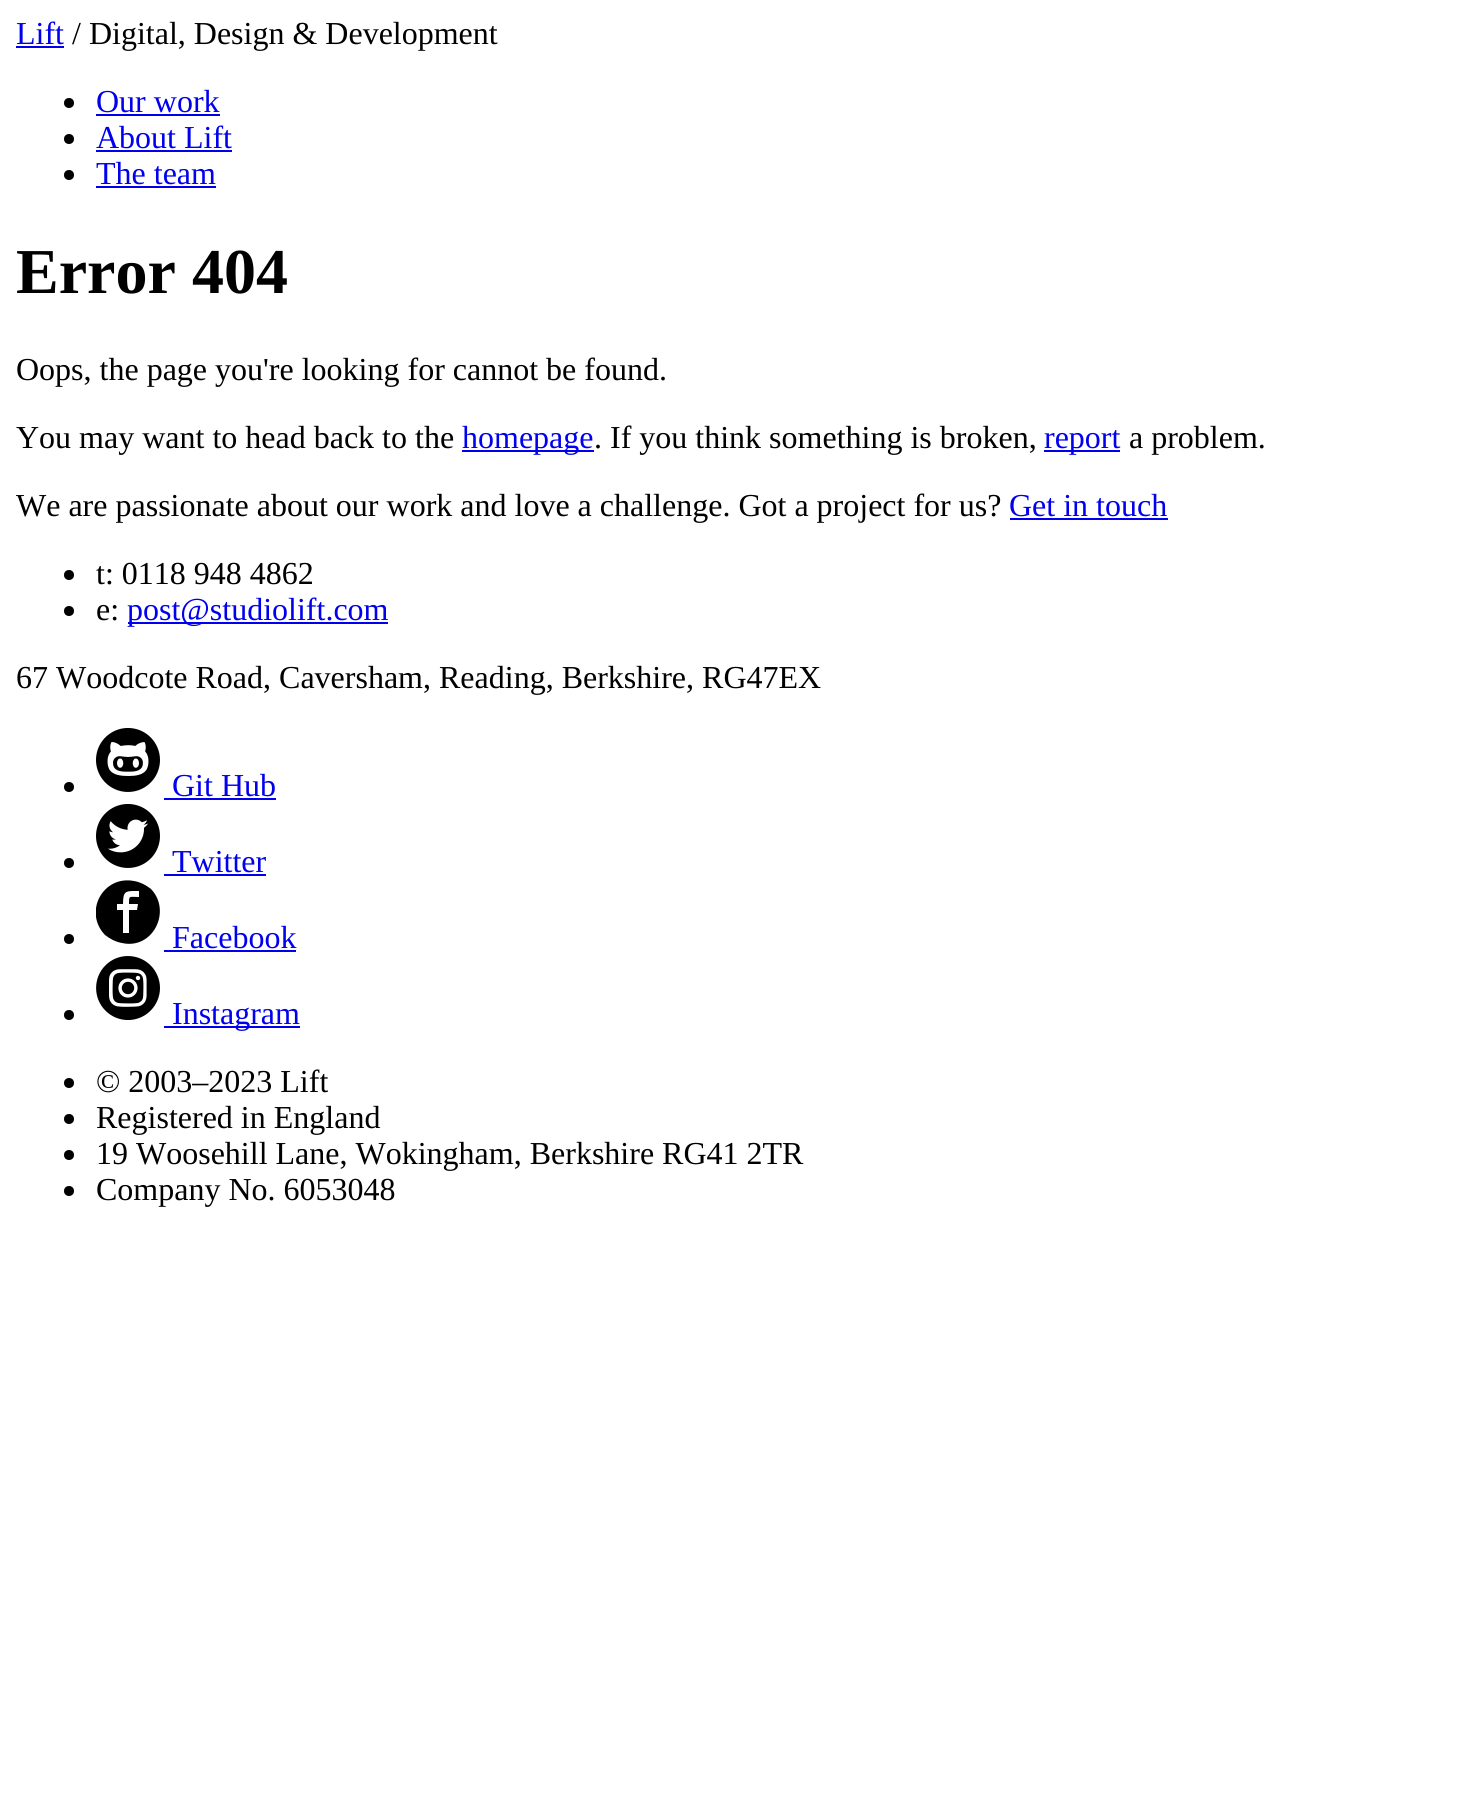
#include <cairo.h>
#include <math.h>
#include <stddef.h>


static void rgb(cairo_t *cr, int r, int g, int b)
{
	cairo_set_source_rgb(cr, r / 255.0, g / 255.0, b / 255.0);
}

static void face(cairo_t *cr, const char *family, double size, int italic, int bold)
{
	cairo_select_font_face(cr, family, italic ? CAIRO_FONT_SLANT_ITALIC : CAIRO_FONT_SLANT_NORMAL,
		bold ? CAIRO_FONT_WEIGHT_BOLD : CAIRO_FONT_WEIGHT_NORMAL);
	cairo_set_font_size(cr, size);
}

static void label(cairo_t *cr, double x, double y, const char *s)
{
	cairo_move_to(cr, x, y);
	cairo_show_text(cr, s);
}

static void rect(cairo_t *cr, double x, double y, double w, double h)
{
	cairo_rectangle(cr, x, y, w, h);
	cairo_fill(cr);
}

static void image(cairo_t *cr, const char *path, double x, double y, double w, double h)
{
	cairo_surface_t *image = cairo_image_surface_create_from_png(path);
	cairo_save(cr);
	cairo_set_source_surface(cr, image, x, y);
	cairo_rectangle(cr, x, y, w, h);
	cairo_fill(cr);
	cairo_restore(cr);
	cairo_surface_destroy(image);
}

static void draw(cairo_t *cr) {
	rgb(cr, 255, 255, 255);
	cairo_paint(cr);
	face(cr, "Liberation Serif", 32, 0, 0);
	rgb(cr, 0, 0, 238);
	label(cr, 16, 44, "Lift");
	rect(cr, 16, 46, 48, 2);
	rgb(cr, 0, 0, 0);
	label(cr, 72, 44, "/ Digital, Design & Development");
	cairo_new_path(cr);
	cairo_arc(cr, 69, 103, 5, 0, 2 * M_PI);
	cairo_fill(cr);
	rgb(cr, 0, 0, 238);
	label(cr, 96, 112, "Our work");
	rect(cr, 96, 114, 124, 2);
	rgb(cr, 0, 0, 0);
	cairo_new_path(cr);
	cairo_arc(cr, 69, 139, 5, 0, 2 * M_PI);
	cairo_fill(cr);
	rgb(cr, 0, 0, 238);
	label(cr, 96, 148, "About Lift");
	rect(cr, 96, 150, 136, 2);
	rgb(cr, 0, 0, 0);
	cairo_new_path(cr);
	cairo_arc(cr, 69, 175, 5, 0, 2 * M_PI);
	cairo_fill(cr);
	rgb(cr, 0, 0, 238);
	label(cr, 96, 184, "The team");
	rect(cr, 96, 186, 120, 2);
	face(cr, "Liberation Serif", 64, 0, 1);
	rgb(cr, 0, 0, 0);
	label(cr, 16, 293, "Error 404");
	face(cr, "Liberation Serif", 32, 0, 0);
	label(cr, 16, 380, "Oops, the page you're looking for cannot be found.");
	label(cr, 16, 448, "You may want to head back to the");
	rgb(cr, 0, 0, 238);
	rect(cr, 462, 450, 132, 2);
	label(cr, 462, 448, "homepage");
	rgb(cr, 0, 0, 0);
	label(cr, 594, 448, ". If you think something is broken,");
	rgb(cr, 0, 0, 238);
	rect(cr, 1044, 450, 76, 2);
	label(cr, 1044, 448, "report");
	rgb(cr, 0, 0, 0);
	label(cr, 1129, 448, "a problem.");
	label(cr, 16, 516, "We are passionate about our work and love a challenge. Got a project for us?");
	rgb(cr, 0, 0, 238);
	label(cr, 1009, 516, "Get in touch");
	rect(cr, 1010, 518, 158, 2);
	rgb(cr, 0, 0, 0);
	cairo_new_path(cr);
	cairo_arc(cr, 69, 575, 5, 0, 2 * M_PI);
	cairo_fill(cr);
	label(cr, 96, 584, "t: 0118 948 4862");
	cairo_new_path(cr);
	cairo_arc(cr, 69, 611, 5, 0, 2 * M_PI);
	cairo_fill(cr);
	label(cr, 96, 620, "e:");
	rgb(cr, 0, 0, 238);
	rect(cr, 128, 622, 260, 2);
	label(cr, 127, 620, "post@studiolift.com");
	rgb(cr, 0, 0, 0);
	label(cr, 16, 688, "67 Woodcote Road, Caversham, Reading, Berkshire, RG47EX");
	cairo_new_path(cr);
	cairo_arc(cr, 69, 787, 5, 0, 2 * M_PI);
	cairo_fill(cr);
	image(cr, "image0.png", 96, 728, 64, 64);
	rgb(cr, 0, 0, 238);
	label(cr, 172, 796, "Git Hub");
	rect(cr, 164, 798, 112, 2);
	rgb(cr, 0, 0, 0);
	cairo_new_path(cr);
	cairo_arc(cr, 69, 863, 5, 0, 2 * M_PI);
	cairo_fill(cr);
	image(cr, "image1.png", 96, 804, 64, 64);
	rgb(cr, 0, 0, 238);
	label(cr, 172, 872, "Twitter");
	rect(cr, 164, 874, 102, 2);
	rgb(cr, 0, 0, 0);
	cairo_new_path(cr);
	cairo_arc(cr, 69, 939, 5, 0, 2 * M_PI);
	cairo_fill(cr);
	cairo_save(cr);
	cairo_rectangle(cr, 96, 880, 68, 68);
	cairo_clip(cr);
	cairo_new_path(cr);
	cairo_move_to(cr, 151, 889);
	cairo_curve_to(cr, 146, 885, 140, 882, 134, 881);
	cairo_curve_to(cr, 103, 875, 83, 912, 105, 935);
	cairo_curve_to(cr, 110, 939, 116, 942, 122, 943);
	cairo_curve_to(cr, 153, 950, 172, 911, 151, 889);
	cairo_close_path(cr);
	cairo_move_to(cr, 139, 897);
	cairo_curve_to(cr, 129, 897, 129, 895, 129, 904);
	cairo_line_to(cr, 138, 904);
	cairo_line_to(cr, 137, 910);
	cairo_line_to(cr, 129, 910);
	cairo_line_to(cr, 129, 933);
	cairo_line_to(cr, 123, 933);
	cairo_line_to(cr, 123, 910);
	cairo_line_to(cr, 117, 910);
	cairo_line_to(cr, 117, 904);
	cairo_line_to(cr, 123, 904);
	cairo_curve_to(cr, 123, 890, 126, 891, 139, 891);
	cairo_close_path(cr);
	cairo_fill(cr);
	cairo_restore(cr);
	rgb(cr, 0, 0, 238);
	label(cr, 172, 948, "Facebook");
	rect(cr, 164, 950, 132, 2);
	rgb(cr, 0, 0, 0);
	cairo_new_path(cr);
	cairo_arc(cr, 69, 1015, 5, 0, 2 * M_PI);
	cairo_fill(cr);
	image(cr, "image2.png", 96, 956, 64, 64);
	rgb(cr, 0, 0, 238);
	rect(cr, 164, 1026, 136, 2);
	label(cr, 172, 1024, "Instagram");
	rgb(cr, 0, 0, 0);
	cairo_new_path(cr);
	cairo_arc(cr, 69, 1083, 5, 0, 2 * M_PI);
	cairo_fill(cr);
	label(cr, 96, 1092, "© 2003–2023 Lift");
	cairo_new_path(cr);
	cairo_arc(cr, 69, 1119, 5, 0, 2 * M_PI);
	cairo_fill(cr);
	label(cr, 96, 1128, "Registered in England");
	cairo_new_path(cr);
	cairo_arc(cr, 69, 1155, 5, 0, 2 * M_PI);
	cairo_fill(cr);
	label(cr, 96, 1164, "19 Woosehill Lane, Wokingham, Berkshire RG41 2TR");
	cairo_new_path(cr);
	cairo_arc(cr, 69, 1191, 5, 0, 2 * M_PI);
	cairo_fill(cr);
	label(cr, 96, 1200, "Company No. 6053048");
}

int main(void) {
	cairo_surface_t *surface = cairo_image_surface_create(CAIRO_FORMAT_RGB24, 1457, 1806);
	cairo_t *cr = cairo_create(surface);
	cairo_font_options_t *options = cairo_font_options_create();
	cairo_font_options_set_hint_metrics(options, CAIRO_HINT_METRICS_OFF);
	cairo_font_options_set_hint_style(options, CAIRO_HINT_STYLE_NONE);
	cairo_set_font_options(cr, options);
	cairo_set_miter_limit(cr, 4);
	draw(cr);
	cairo_surface_write_to_png(surface, "render.png");
	cairo_font_options_destroy(options);
	cairo_destroy(cr);
	cairo_surface_destroy(surface);
	return 0;
}
